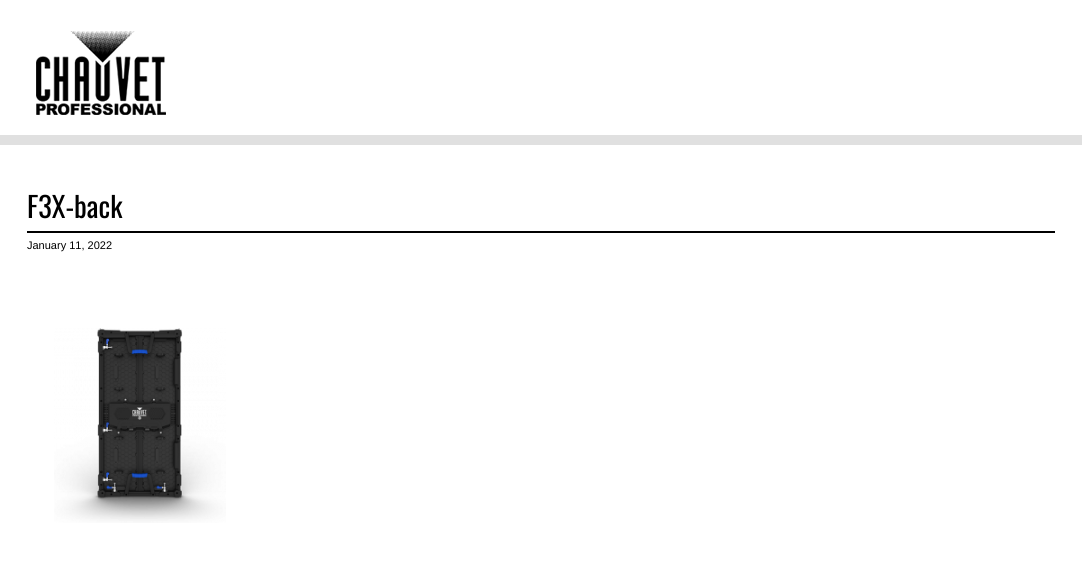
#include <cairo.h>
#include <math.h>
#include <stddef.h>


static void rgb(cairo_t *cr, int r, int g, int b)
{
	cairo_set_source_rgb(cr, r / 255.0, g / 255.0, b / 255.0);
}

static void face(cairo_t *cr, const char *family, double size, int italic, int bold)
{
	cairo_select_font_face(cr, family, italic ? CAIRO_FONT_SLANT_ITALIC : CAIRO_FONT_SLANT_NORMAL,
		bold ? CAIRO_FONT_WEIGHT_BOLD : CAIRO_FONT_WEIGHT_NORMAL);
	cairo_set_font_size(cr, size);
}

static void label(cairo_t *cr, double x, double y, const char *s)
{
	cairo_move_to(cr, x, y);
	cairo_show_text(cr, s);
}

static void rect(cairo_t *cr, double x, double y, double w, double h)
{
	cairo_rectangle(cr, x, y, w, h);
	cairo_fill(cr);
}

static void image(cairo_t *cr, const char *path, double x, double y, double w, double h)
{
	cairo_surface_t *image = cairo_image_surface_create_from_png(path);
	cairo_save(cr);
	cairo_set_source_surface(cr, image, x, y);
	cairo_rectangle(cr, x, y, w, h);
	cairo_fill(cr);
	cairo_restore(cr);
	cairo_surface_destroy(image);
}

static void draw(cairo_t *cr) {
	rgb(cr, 255, 255, 255);
	cairo_paint(cr);
	rgb(cr, 224, 224, 224);
	rect(cr, 0, 135, 1082, 10);
	image(cr, "image0.png", 36, 31, 130, 84);
	face(cr, "Oswald", 28.5, 0, 0);
	rgb(cr, 0, 0, 0);
	label(cr, 27, 218, "F3X-back");
	rect(cr, 27, 231, 1028, 2);
	face(cr, "Liberation Sans", 11, 0, 0);
	label(cr, 27, 249, "January 11, 2022");
	image(cr, "image1.png", 54, 328, 172, 195);
}

int main(void) {
	cairo_surface_t *surface = cairo_image_surface_create(CAIRO_FORMAT_RGB24, 1082, 564);
	cairo_t *cr = cairo_create(surface);
	cairo_font_options_t *options = cairo_font_options_create();
	cairo_font_options_set_hint_metrics(options, CAIRO_HINT_METRICS_OFF);
	cairo_font_options_set_hint_style(options, CAIRO_HINT_STYLE_NONE);
	cairo_set_font_options(cr, options);
	cairo_set_miter_limit(cr, 4);
	draw(cr);
	cairo_surface_write_to_png(surface, "render.png");
	cairo_font_options_destroy(options);
	cairo_destroy(cr);
	cairo_surface_destroy(surface);
	return 0;
}
